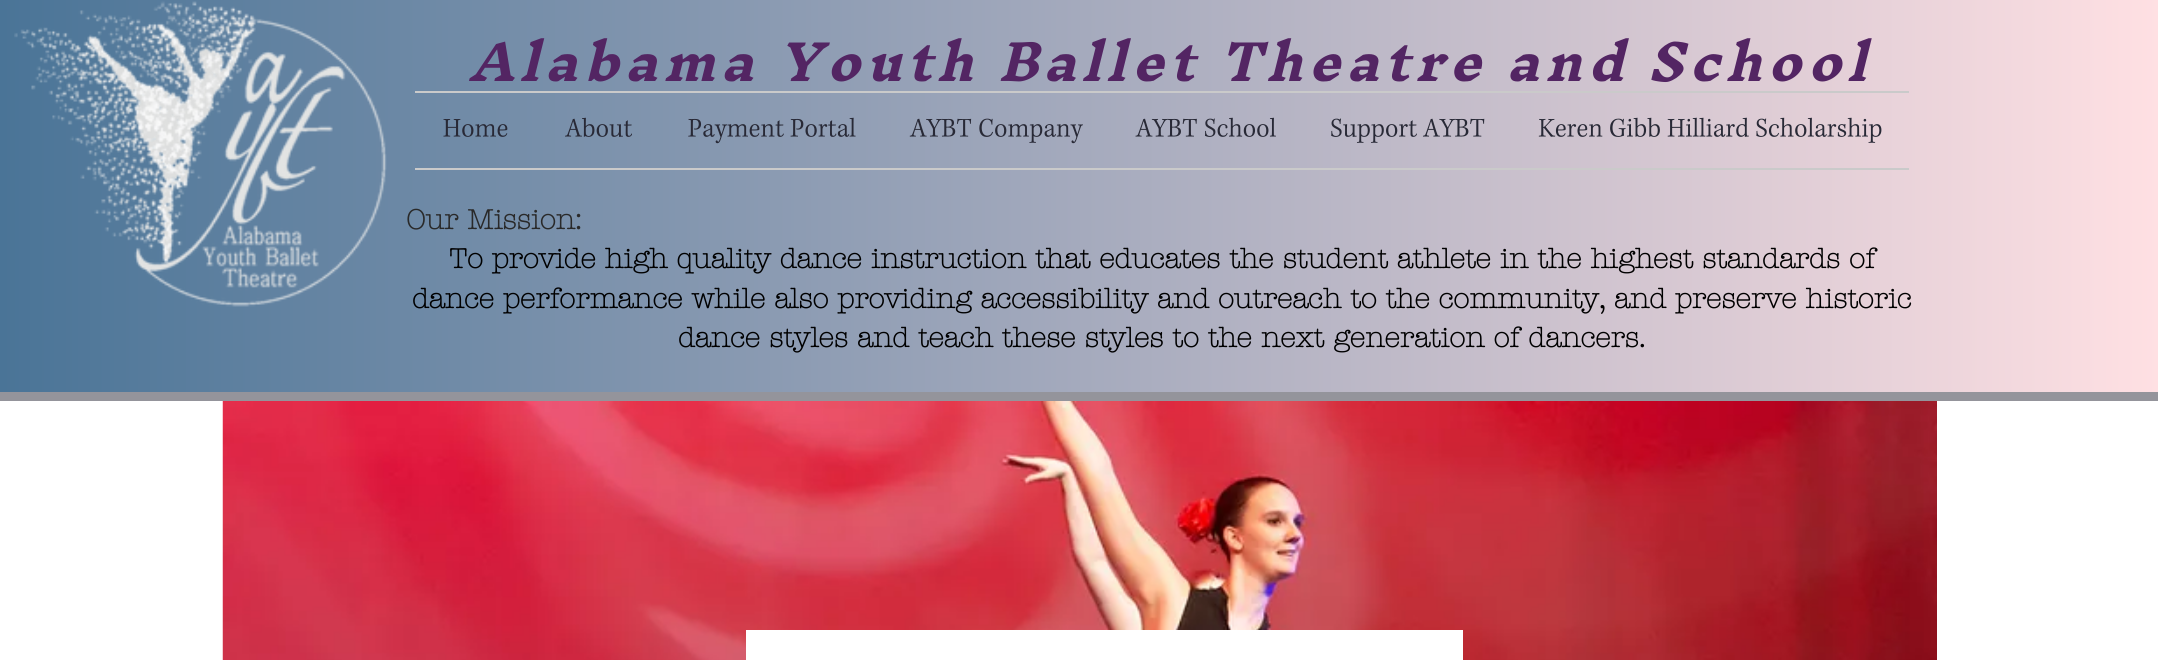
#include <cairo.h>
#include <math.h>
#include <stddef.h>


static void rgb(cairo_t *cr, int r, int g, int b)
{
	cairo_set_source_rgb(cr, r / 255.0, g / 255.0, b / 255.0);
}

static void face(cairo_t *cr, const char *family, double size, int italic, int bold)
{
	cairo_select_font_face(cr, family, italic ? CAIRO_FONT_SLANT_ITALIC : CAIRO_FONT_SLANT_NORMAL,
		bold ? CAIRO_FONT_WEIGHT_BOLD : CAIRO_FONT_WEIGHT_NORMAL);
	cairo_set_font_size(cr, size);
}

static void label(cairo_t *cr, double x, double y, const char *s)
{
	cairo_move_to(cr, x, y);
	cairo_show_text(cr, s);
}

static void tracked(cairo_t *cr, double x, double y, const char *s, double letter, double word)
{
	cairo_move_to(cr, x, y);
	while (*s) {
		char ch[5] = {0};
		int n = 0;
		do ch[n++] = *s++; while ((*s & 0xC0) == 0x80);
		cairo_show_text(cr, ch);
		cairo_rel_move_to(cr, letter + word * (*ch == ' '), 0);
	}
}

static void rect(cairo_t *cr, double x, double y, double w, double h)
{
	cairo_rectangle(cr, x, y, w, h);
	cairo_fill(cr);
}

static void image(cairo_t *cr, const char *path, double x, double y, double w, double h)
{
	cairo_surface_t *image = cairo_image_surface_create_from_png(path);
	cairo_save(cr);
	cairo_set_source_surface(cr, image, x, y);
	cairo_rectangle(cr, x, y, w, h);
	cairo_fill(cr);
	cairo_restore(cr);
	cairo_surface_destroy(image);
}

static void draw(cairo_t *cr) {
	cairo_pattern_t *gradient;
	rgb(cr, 255, 255, 255);
	cairo_paint(cr);
	rgb(cr, 148, 148, 155);
	rect(cr, 0, 392, 2158, 9);
	gradient = cairo_pattern_create_linear(0, 196, 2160, 196);
	cairo_pattern_add_color_stop_rgba(gradient, 0, 0.29, 0.455, 0.592, 1);
	cairo_pattern_add_color_stop_rgba(gradient, 1, 1, 0.878, 0.89, 1);
	cairo_set_source(cr, gradient);
	cairo_pattern_destroy(gradient);
	rect(cr, 0, 0, 2158, 392);
	image(cr, "image0.png", 14, 1, 373, 306);
	face(cr, "Inknut Antiqua", 49, 1, 1);
	rgb(cr, 83, 37, 99);
	tracked(cr, 469, 81, "Alabama Youth Ballet Theatre and School", 5.9, 0);
	rgb(cr, 202, 202, 202);
	rect(cr, 415, 91, 1494, 2);
	rect(cr, 415, 168, 1494, 2);
	image(cr, "image1.png", 443, 119, 65, 18);
	image(cr, "image2.png", 565, 117, 67, 20);
	image(cr, "image3.png", 688, 117, 168, 27);
	image(cr, "image4.png", 909, 118, 174, 26);
	image(cr, "image5.png", 1135, 117, 141, 20);
	image(cr, "image6.png", 1331, 118, 154, 25);
	image(cr, "image7.png", 1538, 117, 344, 26);
	face(cr, "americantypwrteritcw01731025", 28, 0, 1);
	rgb(cr, 41, 41, 41);
	label(cr, 406, 229, "Our Mission:");
	rgb(cr, 0, 0, 0);
	label(cr, 449, 268, "To provide high quality dance instruction that educates the student athlete in the highest standards of");
	label(cr, 412, 308, "dance performance while also providing accessibility and outreach to the community, and preserve historic");
	label(cr, 678, 347, "dance styles and teach these styles to the next generation of dancers.");
	image(cr, "image8.png", 222, 401, 1715, 259);
	rgb(cr, 255, 255, 255);
	rect(cr, 746, 630, 717, 30);
}

int main(void) {
	cairo_surface_t *surface = cairo_image_surface_create(CAIRO_FORMAT_RGB24, 2158, 660);
	cairo_t *cr = cairo_create(surface);
	cairo_font_options_t *options = cairo_font_options_create();
	cairo_font_options_set_hint_metrics(options, CAIRO_HINT_METRICS_OFF);
	cairo_font_options_set_hint_style(options, CAIRO_HINT_STYLE_NONE);
	cairo_set_font_options(cr, options);
	cairo_set_miter_limit(cr, 4);
	draw(cr);
	cairo_surface_write_to_png(surface, "render.png");
	cairo_font_options_destroy(options);
	cairo_destroy(cr);
	cairo_surface_destroy(surface);
	return 0;
}
